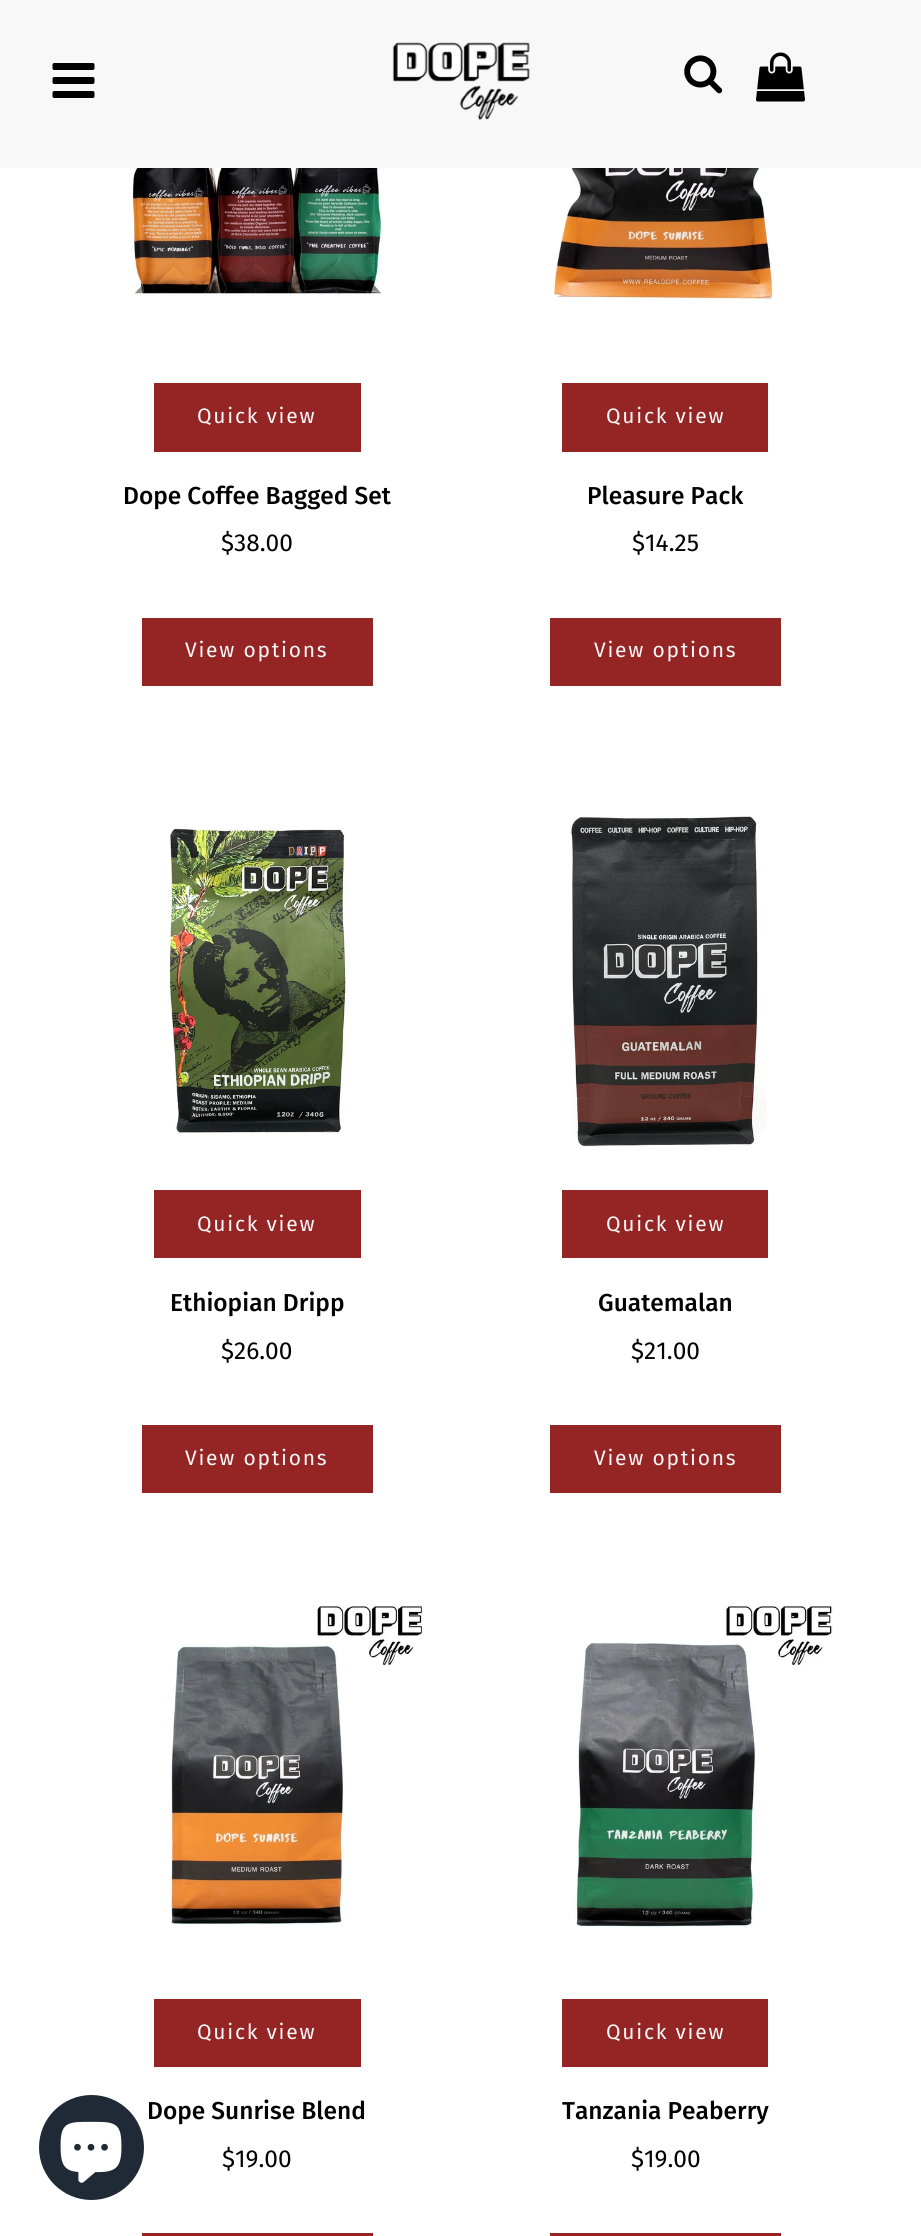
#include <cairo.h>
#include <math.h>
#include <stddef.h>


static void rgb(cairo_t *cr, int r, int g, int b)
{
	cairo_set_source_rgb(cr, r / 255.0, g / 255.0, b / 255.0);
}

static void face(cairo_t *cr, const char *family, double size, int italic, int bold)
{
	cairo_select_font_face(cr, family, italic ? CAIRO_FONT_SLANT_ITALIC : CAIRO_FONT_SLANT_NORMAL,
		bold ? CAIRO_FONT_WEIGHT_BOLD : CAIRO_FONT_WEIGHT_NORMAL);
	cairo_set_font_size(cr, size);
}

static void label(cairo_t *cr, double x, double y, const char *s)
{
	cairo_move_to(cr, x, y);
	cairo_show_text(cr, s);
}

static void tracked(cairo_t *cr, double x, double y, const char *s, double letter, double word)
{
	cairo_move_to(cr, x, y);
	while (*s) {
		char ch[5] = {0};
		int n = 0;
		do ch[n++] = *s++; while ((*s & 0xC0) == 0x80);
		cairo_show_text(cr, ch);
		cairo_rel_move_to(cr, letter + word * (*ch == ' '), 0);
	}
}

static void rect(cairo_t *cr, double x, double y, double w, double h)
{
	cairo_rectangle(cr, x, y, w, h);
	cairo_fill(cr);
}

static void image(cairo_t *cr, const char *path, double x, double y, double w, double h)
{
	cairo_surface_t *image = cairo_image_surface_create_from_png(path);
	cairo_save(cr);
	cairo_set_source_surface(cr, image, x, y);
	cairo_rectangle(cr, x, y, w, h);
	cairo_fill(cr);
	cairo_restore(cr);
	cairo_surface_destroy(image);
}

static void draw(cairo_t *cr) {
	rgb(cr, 255, 255, 255);
	cairo_paint(cr);
	rgb(cr, 32, 42, 54);
	cairo_arc(cr, 91.5, 2147.5, 52.5, 0, 2 * M_PI);
	cairo_fill(cr);
	image(cr, "image0.png", 60, 2121, 62, 62);
	rgb(cr, 248, 248, 248);
	rect(cr, 0, 0, 921, 168);
	image(cr, "image1.png", 52, 63, 43, 35);
	image(cr, "image2.png", 392, 42, 138, 78);
	image(cr, "image3.png", 684, 55, 39, 39);
	image(cr, "image4.png", 756, 52, 49, 50);
	image(cr, "image5.png", 131, 168, 292, 128);
	rgb(cr, 149, 37, 37);
	rect(cr, 154, 383, 207, 69);
	face(cr, "Fira Sans", 21, 0, 0);
	rgb(cr, 248, 248, 248);
	tracked(cr, 197, 423, "Quick view", 1.75, 0);
	face(cr, "Fira Sans Medium", 24.5, 0, 0);
	rgb(cr, 0, 0, 0);
	label(cr, 123, 504, "Dope Coffee Bagged Set");
	face(cr, "Fira Sans", 24.5, 0, 0);
	label(cr, 221, 551, "$38.00");
	rgb(cr, 149, 37, 37);
	rect(cr, 142, 618, 231, 68);
	face(cr, "Fira Sans", 21, 0, 0);
	rgb(cr, 248, 248, 248);
	tracked(cr, 185, 657, "View options", 1.75, 0);
	image(cr, "image6.png", 553, 168, 280, 132);
	rgb(cr, 149, 37, 37);
	rect(cr, 562, 383, 206, 69);
	rgb(cr, 248, 248, 248);
	tracked(cr, 606, 423, "Quick view", 1.75, 0);
	face(cr, "Fira Sans Medium", 24.5, 0, 0);
	rgb(cr, 0, 0, 0);
	label(cr, 587, 504, "Pleasure Pack");
	face(cr, "Fira Sans", 24.5, 0, 0);
	label(cr, 632, 551, "$14.25");
	rgb(cr, 149, 37, 37);
	rect(cr, 550, 618, 231, 68);
	face(cr, "Fira Sans", 21, 0, 0);
	rgb(cr, 248, 248, 248);
	tracked(cr, 594, 657, "View options", 1.75, 0);
	image(cr, "image7.png", 169, 828, 180, 306);
	rgb(cr, 149, 37, 37);
	rect(cr, 154, 1190, 207, 68);
	rgb(cr, 248, 248, 248);
	tracked(cr, 197, 1231, "Quick view", 1.75, 0);
	face(cr, "Fira Sans Medium", 24.5, 0, 0);
	rgb(cr, 0, 0, 0);
	label(cr, 170, 1311, "Ethiopian Dripp");
	face(cr, "Fira Sans", 24.5, 0, 0);
	label(cr, 221, 1359, "$26.00");
	rgb(cr, 149, 37, 37);
	rect(cr, 142, 1425, 231, 68);
	face(cr, "Fira Sans", 21, 0, 0);
	rgb(cr, 248, 248, 248);
	tracked(cr, 185, 1465, "View options", 1.75, 0);
	image(cr, "image8.png", 571, 816, 196, 331);
	rgb(cr, 149, 37, 37);
	rect(cr, 562, 1190, 206, 68);
	rgb(cr, 248, 248, 248);
	tracked(cr, 606, 1231, "Quick view", 1.75, 0);
	face(cr, "Fira Sans Medium", 24.5, 0, 0);
	rgb(cr, 0, 0, 0);
	label(cr, 598, 1311, "Guatemalan");
	face(cr, "Fira Sans", 24.5, 0, 0);
	label(cr, 631, 1359, "$21.00");
	rgb(cr, 149, 37, 37);
	rect(cr, 550, 1425, 231, 68);
	face(cr, "Fira Sans", 21, 0, 0);
	rgb(cr, 248, 248, 248);
	tracked(cr, 594, 1465, "View options", 1.75, 0);
	image(cr, "image9.png", 170, 1605, 254, 320);
	rgb(cr, 149, 37, 37);
	rect(cr, 154, 1999, 207, 68);
	rgb(cr, 248, 248, 248);
	tracked(cr, 197, 2039, "Quick view", 1.75, 0);
	face(cr, "Fira Sans Medium", 24.5, 0, 0);
	rgb(cr, 0, 0, 0);
	label(cr, 147, 2119, "Dope Sunrise Blend");
	face(cr, "Fira Sans", 24.5, 0, 0);
	label(cr, 222, 2167, "$19.00");
	rgb(cr, 149, 37, 37);
	rect(cr, 142, 2233, 231, 3);
	image(cr, "image10.png", 573, 1605, 260, 323);
	rect(cr, 562, 1999, 206, 68);
	face(cr, "Fira Sans", 21, 0, 0);
	rgb(cr, 248, 248, 248);
	tracked(cr, 606, 2039, "Quick view", 1.75, 0);
	face(cr, "Fira Sans Medium", 24.5, 0, 0);
	rgb(cr, 0, 0, 0);
	label(cr, 562, 2119, "Tanzania Peaberry");
	face(cr, "Fira Sans", 24.5, 0, 0);
	label(cr, 631, 2167, "$19.00");
	rgb(cr, 149, 37, 37);
	rect(cr, 550, 2233, 231, 3);
}

int main(void) {
	cairo_surface_t *surface = cairo_image_surface_create(CAIRO_FORMAT_RGB24, 921, 2236);
	cairo_t *cr = cairo_create(surface);
	cairo_font_options_t *options = cairo_font_options_create();
	cairo_font_options_set_hint_metrics(options, CAIRO_HINT_METRICS_OFF);
	cairo_font_options_set_hint_style(options, CAIRO_HINT_STYLE_NONE);
	cairo_set_font_options(cr, options);
	cairo_set_miter_limit(cr, 4);
	draw(cr);
	cairo_surface_write_to_png(surface, "render.png");
	cairo_font_options_destroy(options);
	cairo_destroy(cr);
	cairo_surface_destroy(surface);
	return 0;
}
